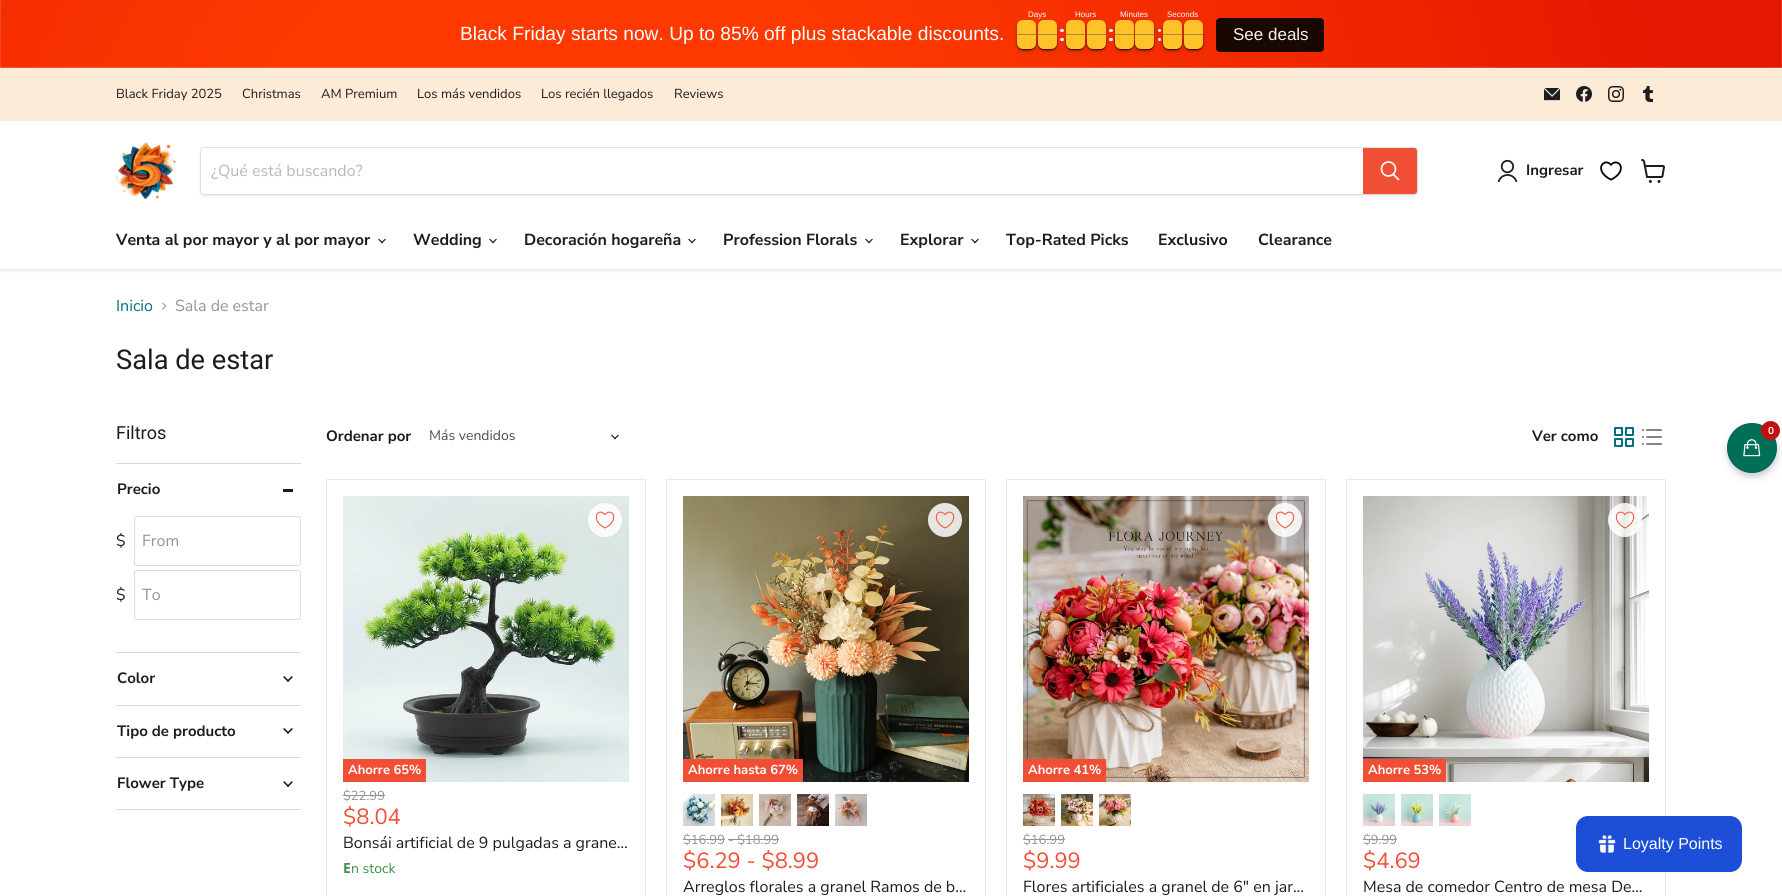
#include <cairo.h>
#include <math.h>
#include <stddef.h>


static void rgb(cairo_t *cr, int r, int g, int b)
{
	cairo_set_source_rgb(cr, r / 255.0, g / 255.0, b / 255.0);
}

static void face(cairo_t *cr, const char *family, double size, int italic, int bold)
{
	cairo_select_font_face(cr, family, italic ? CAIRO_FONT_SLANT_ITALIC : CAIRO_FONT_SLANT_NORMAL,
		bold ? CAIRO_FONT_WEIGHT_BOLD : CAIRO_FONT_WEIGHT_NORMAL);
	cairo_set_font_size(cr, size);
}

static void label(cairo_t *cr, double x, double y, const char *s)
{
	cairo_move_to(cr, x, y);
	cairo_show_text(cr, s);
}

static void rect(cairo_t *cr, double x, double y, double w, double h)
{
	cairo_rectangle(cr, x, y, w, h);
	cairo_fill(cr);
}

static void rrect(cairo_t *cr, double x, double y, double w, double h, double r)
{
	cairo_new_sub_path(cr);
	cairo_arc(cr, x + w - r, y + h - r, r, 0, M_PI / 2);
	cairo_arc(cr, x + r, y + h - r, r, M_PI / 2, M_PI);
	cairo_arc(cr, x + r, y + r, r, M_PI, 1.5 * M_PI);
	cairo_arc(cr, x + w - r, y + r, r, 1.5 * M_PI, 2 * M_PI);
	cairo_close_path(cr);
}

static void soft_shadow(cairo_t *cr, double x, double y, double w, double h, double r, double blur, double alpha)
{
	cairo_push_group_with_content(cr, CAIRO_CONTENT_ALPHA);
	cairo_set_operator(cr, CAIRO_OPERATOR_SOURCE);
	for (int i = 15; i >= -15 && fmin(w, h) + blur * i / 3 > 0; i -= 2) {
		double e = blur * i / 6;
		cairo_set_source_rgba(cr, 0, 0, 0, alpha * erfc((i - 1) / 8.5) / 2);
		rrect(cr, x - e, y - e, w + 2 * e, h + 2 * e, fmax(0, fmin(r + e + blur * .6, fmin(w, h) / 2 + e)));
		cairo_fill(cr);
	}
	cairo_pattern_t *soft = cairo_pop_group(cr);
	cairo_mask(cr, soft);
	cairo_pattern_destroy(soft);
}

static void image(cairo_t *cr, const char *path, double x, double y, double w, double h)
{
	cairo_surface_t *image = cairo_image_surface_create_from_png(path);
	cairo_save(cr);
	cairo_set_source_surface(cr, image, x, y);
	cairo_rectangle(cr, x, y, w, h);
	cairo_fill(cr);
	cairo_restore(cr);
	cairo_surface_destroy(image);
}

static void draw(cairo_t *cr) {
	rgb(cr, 255, 255, 255);
	cairo_paint(cr);
	image(cr, "image0.png", 0, 0, 1782, 68);
	rgb(cr, 0, 0, 0);
	soft_shadow(cr, 1017, 23, 19, 29, 6, 4, 0.05);
	soft_shadow(cr, 1017, 22, 19, 29, 6, 1.5, 0.24);
	soft_shadow(cr, 1017, 36, 19, 14, 6, 0.5, 0.4);
	soft_shadow(cr, 1038, 23, 19, 29, 6, 4, 0.05);
	soft_shadow(cr, 1038, 22, 19, 29, 6, 1.5, 0.24);
	soft_shadow(cr, 1038, 36, 19, 14, 6, 0.5, 0.4);
	rgb(cr, 255, 194, 41);
	cairo_new_path(cr);
	cairo_move_to(cr, 1023, 20);
	cairo_line_to(cr, 1030, 20);
	cairo_curve_to(cr, 1033.5, 20, 1036, 22.5, 1036, 26);
	cairo_line_to(cr, 1036, 35);
	cairo_line_to(cr, 1017, 35);
	cairo_line_to(cr, 1017, 26);
	cairo_curve_to(cr, 1017, 22.5, 1019.5, 20, 1023, 20);
	cairo_close_path(cr);
	cairo_fill(cr);
	cairo_set_source_rgba(cr, 0.2, 0.2, 0.2, 0.4);
	rect(cr, 1017, 34, 19, 1);
	rgb(cr, 0, 0, 0);
	soft_shadow(cr, 1017, 36, 19, 14, 6, 0.5, 0.4);
	rgb(cr, 255, 194, 41);
	cairo_new_path(cr);
	cairo_move_to(cr, 1017, 35);
	cairo_line_to(cr, 1036, 35);
	cairo_line_to(cr, 1036, 43);
	cairo_curve_to(cr, 1036, 46.5, 1033.5, 49, 1030, 49);
	cairo_line_to(cr, 1023, 49);
	cairo_curve_to(cr, 1019.5, 49, 1017, 46.5, 1017, 43);
	cairo_close_path(cr);
	cairo_fill(cr);
	cairo_set_source_rgba(cr, 0.8, 0.8, 0.8, 0.1);
	rect(cr, 1017, 35, 19, 1);
	rgb(cr, 255, 255, 255);
	rrect(cr, 1060, 29, 4, 3, 1.5);
	cairo_fill(cr);
	rrect(cr, 1060, 38, 4, 3, 1.5);
	cairo_fill(cr);
	rgb(cr, 0, 0, 0);
	soft_shadow(cr, 1066, 23, 19, 29, 6, 4, 0.05);
	rgb(cr, 255, 194, 41);
	cairo_new_path(cr);
	cairo_move_to(cr, 1044, 20);
	cairo_line_to(cr, 1051, 20);
	cairo_curve_to(cr, 1054.5, 20, 1057, 22.5, 1057, 26);
	cairo_line_to(cr, 1057, 35);
	cairo_line_to(cr, 1038, 35);
	cairo_line_to(cr, 1038, 26);
	cairo_curve_to(cr, 1038, 22.5, 1040.5, 20, 1044, 20);
	cairo_close_path(cr);
	cairo_fill(cr);
	cairo_set_source_rgba(cr, 0.2, 0.2, 0.2, 0.4);
	rect(cr, 1038, 34, 19, 1);
	rgb(cr, 0, 0, 0);
	soft_shadow(cr, 1038, 36, 19, 14, 6, 0.5, 0.4);
	rgb(cr, 255, 194, 41);
	cairo_new_path(cr);
	cairo_move_to(cr, 1038, 35);
	cairo_line_to(cr, 1057, 35);
	cairo_line_to(cr, 1057, 43);
	cairo_curve_to(cr, 1057, 46.5, 1054.5, 49, 1051, 49);
	cairo_line_to(cr, 1044, 49);
	cairo_curve_to(cr, 1040.5, 49, 1038, 46.5, 1038, 43);
	cairo_close_path(cr);
	cairo_fill(cr);
	cairo_set_source_rgba(cr, 0.8, 0.8, 0.8, 0.1);
	rect(cr, 1038, 35, 19, 1);
	face(cr, "Liberation Sans", 8, 0, 0);
	rgb(cr, 255, 255, 255);
	label(cr, 1028, 17, "Days");
	rgb(cr, 0, 0, 0);
	soft_shadow(cr, 1066, 22, 19, 29, 6, 1.5, 0.24);
	soft_shadow(cr, 1066, 36, 19, 14, 6, 0.5, 0.4);
	soft_shadow(cr, 1087, 23, 19, 29, 6, 4, 0.05);
	soft_shadow(cr, 1087, 22, 19, 29, 6, 1.5, 0.24);
	soft_shadow(cr, 1087, 36, 19, 14, 6, 0.5, 0.4);
	rgb(cr, 255, 194, 41);
	cairo_new_path(cr);
	cairo_move_to(cr, 1072, 20);
	cairo_line_to(cr, 1079, 20);
	cairo_curve_to(cr, 1082.5, 20, 1085, 22.5, 1085, 26);
	cairo_line_to(cr, 1085, 35);
	cairo_line_to(cr, 1066, 35);
	cairo_line_to(cr, 1066, 26);
	cairo_curve_to(cr, 1066, 22.5, 1068.5, 20, 1072, 20);
	cairo_close_path(cr);
	cairo_fill(cr);
	cairo_set_source_rgba(cr, 0.2, 0.2, 0.2, 0.4);
	rect(cr, 1066, 34, 19, 1);
	rgb(cr, 0, 0, 0);
	soft_shadow(cr, 1066, 36, 19, 14, 6, 0.5, 0.4);
	rgb(cr, 255, 194, 41);
	cairo_new_path(cr);
	cairo_move_to(cr, 1066, 35);
	cairo_line_to(cr, 1085, 35);
	cairo_line_to(cr, 1085, 43);
	cairo_curve_to(cr, 1085, 46.5, 1082.5, 49, 1079, 49);
	cairo_line_to(cr, 1072, 49);
	cairo_curve_to(cr, 1068.5, 49, 1066, 46.5, 1066, 43);
	cairo_close_path(cr);
	cairo_fill(cr);
	cairo_set_source_rgba(cr, 0.8, 0.8, 0.8, 0.1);
	rect(cr, 1066, 35, 19, 1);
	rgb(cr, 255, 255, 255);
	rrect(cr, 1109, 29, 4, 3, 1.5);
	cairo_fill(cr);
	rrect(cr, 1109, 38, 4, 3, 1.5);
	cairo_fill(cr);
	rgb(cr, 0, 0, 0);
	soft_shadow(cr, 1115, 23, 19, 29, 6, 4, 0.05);
	rgb(cr, 255, 194, 41);
	cairo_new_path(cr);
	cairo_move_to(cr, 1093, 20);
	cairo_line_to(cr, 1100, 20);
	cairo_curve_to(cr, 1103.5, 20, 1106, 22.5, 1106, 26);
	cairo_line_to(cr, 1106, 35);
	cairo_line_to(cr, 1087, 35);
	cairo_line_to(cr, 1087, 26);
	cairo_curve_to(cr, 1087, 22.5, 1089.5, 20, 1093, 20);
	cairo_close_path(cr);
	cairo_fill(cr);
	cairo_set_source_rgba(cr, 0.2, 0.2, 0.2, 0.4);
	rect(cr, 1087, 34, 19, 1);
	rgb(cr, 0, 0, 0);
	soft_shadow(cr, 1087, 36, 19, 14, 6, 0.5, 0.4);
	rgb(cr, 255, 194, 41);
	cairo_new_path(cr);
	cairo_move_to(cr, 1087, 35);
	cairo_line_to(cr, 1106, 35);
	cairo_line_to(cr, 1106, 43);
	cairo_curve_to(cr, 1106, 46.5, 1103.5, 49, 1100, 49);
	cairo_line_to(cr, 1093, 49);
	cairo_curve_to(cr, 1089.5, 49, 1087, 46.5, 1087, 43);
	cairo_close_path(cr);
	cairo_fill(cr);
	cairo_set_source_rgba(cr, 0.8, 0.8, 0.8, 0.1);
	rect(cr, 1087, 35, 19, 1);
	rgb(cr, 255, 255, 255);
	label(cr, 1075, 17, "Hours");
	rgb(cr, 0, 0, 0);
	soft_shadow(cr, 1115, 22, 19, 29, 6, 1.5, 0.24);
	soft_shadow(cr, 1115, 36, 19, 14, 6, 0.5, 0.4);
	soft_shadow(cr, 1135, 23, 19, 29, 6, 4, 0.05);
	soft_shadow(cr, 1135, 22, 19, 29, 6, 1.5, 0.24);
	soft_shadow(cr, 1135, 36, 19, 14, 6, 0.5, 0.4);
	rgb(cr, 255, 194, 41);
	cairo_new_path(cr);
	cairo_move_to(cr, 1121, 20);
	cairo_line_to(cr, 1128, 20);
	cairo_curve_to(cr, 1131.5, 20, 1134, 22.5, 1134, 26);
	cairo_line_to(cr, 1134, 35);
	cairo_line_to(cr, 1115, 35);
	cairo_line_to(cr, 1115, 26);
	cairo_curve_to(cr, 1115, 22.5, 1117.5, 20, 1121, 20);
	cairo_close_path(cr);
	cairo_fill(cr);
	cairo_set_source_rgba(cr, 0.2, 0.2, 0.2, 0.4);
	rect(cr, 1115, 34, 19, 1);
	rgb(cr, 0, 0, 0);
	soft_shadow(cr, 1115, 36, 19, 14, 6, 0.5, 0.4);
	rgb(cr, 255, 194, 41);
	cairo_new_path(cr);
	cairo_move_to(cr, 1115, 35);
	cairo_line_to(cr, 1134, 35);
	cairo_line_to(cr, 1134, 43);
	cairo_curve_to(cr, 1134, 46.5, 1131.5, 49, 1128, 49);
	cairo_line_to(cr, 1121, 49);
	cairo_curve_to(cr, 1117.5, 49, 1115, 46.5, 1115, 43);
	cairo_close_path(cr);
	cairo_fill(cr);
	cairo_set_source_rgba(cr, 0.8, 0.8, 0.8, 0.1);
	rect(cr, 1115, 35, 19, 1);
	rgb(cr, 255, 255, 255);
	cairo_arc(cr, 1159.5, 30.5, 1.5, 0, 2 * M_PI);
	cairo_fill(cr);
	cairo_arc(cr, 1159.5, 39.5, 1.5, 0, 2 * M_PI);
	cairo_fill(cr);
	rgb(cr, 0, 0, 0);
	soft_shadow(cr, 1163, 23, 19, 29, 6, 4, 0.05);
	rgb(cr, 255, 194, 41);
	cairo_new_path(cr);
	cairo_move_to(cr, 1141, 20);
	cairo_line_to(cr, 1148, 20);
	cairo_curve_to(cr, 1151.5, 20, 1154, 22.5, 1154, 26);
	cairo_line_to(cr, 1154, 35);
	cairo_line_to(cr, 1135, 35);
	cairo_line_to(cr, 1135, 26);
	cairo_curve_to(cr, 1135, 22.5, 1137.5, 20, 1141, 20);
	cairo_close_path(cr);
	cairo_fill(cr);
	cairo_set_source_rgba(cr, 0.2, 0.2, 0.2, 0.4);
	rect(cr, 1135, 34, 19, 1);
	rgb(cr, 0, 0, 0);
	soft_shadow(cr, 1135, 36, 19, 14, 6, 0.5, 0.4);
	rgb(cr, 255, 194, 41);
	cairo_new_path(cr);
	cairo_move_to(cr, 1135, 35);
	cairo_line_to(cr, 1154, 35);
	cairo_line_to(cr, 1154, 43);
	cairo_curve_to(cr, 1154, 46.5, 1151.5, 49, 1148, 49);
	cairo_line_to(cr, 1141, 49);
	cairo_curve_to(cr, 1137.5, 49, 1135, 46.5, 1135, 43);
	cairo_close_path(cr);
	cairo_fill(cr);
	cairo_set_source_rgba(cr, 0.8, 0.8, 0.8, 0.1);
	rect(cr, 1135, 35, 19, 1);
	rgb(cr, 255, 255, 255);
	label(cr, 1120, 17, "Minutes");
	rgb(cr, 0, 0, 0);
	soft_shadow(cr, 1163, 22, 19, 29, 6, 1.5, 0.24);
	soft_shadow(cr, 1163, 36, 19, 14, 6, 0.5, 0.4);
	soft_shadow(cr, 1184, 23, 19, 29, 6, 4, 0.05);
	soft_shadow(cr, 1184, 22, 19, 29, 6, 1.5, 0.24);
	soft_shadow(cr, 1184, 36, 19, 14, 6, 0.5, 0.4);
	rgb(cr, 255, 194, 41);
	cairo_new_path(cr);
	cairo_move_to(cr, 1169, 20);
	cairo_line_to(cr, 1176, 20);
	cairo_curve_to(cr, 1179.5, 20, 1182, 22.5, 1182, 26);
	cairo_line_to(cr, 1182, 35);
	cairo_line_to(cr, 1163, 35);
	cairo_line_to(cr, 1163, 26);
	cairo_curve_to(cr, 1163, 22.5, 1165.5, 20, 1169, 20);
	cairo_close_path(cr);
	cairo_fill(cr);
	cairo_set_source_rgba(cr, 0.2, 0.2, 0.2, 0.4);
	rect(cr, 1163, 34, 19, 1);
	rgb(cr, 0, 0, 0);
	soft_shadow(cr, 1163, 36, 19, 14, 6, 0.5, 0.4);
	rgb(cr, 255, 194, 41);
	cairo_new_path(cr);
	cairo_move_to(cr, 1163, 35);
	cairo_line_to(cr, 1182, 35);
	cairo_line_to(cr, 1182, 43);
	cairo_curve_to(cr, 1182, 46.5, 1179.5, 49, 1176, 49);
	cairo_line_to(cr, 1169, 49);
	cairo_curve_to(cr, 1165.5, 49, 1163, 46.5, 1163, 43);
	cairo_close_path(cr);
	cairo_fill(cr);
	cairo_set_source_rgba(cr, 0.8, 0.8, 0.8, 0.1);
	rect(cr, 1163, 35, 19, 1);
	rgb(cr, 255, 194, 41);
	cairo_new_path(cr);
	cairo_move_to(cr, 1190, 20);
	cairo_line_to(cr, 1197, 20);
	cairo_curve_to(cr, 1200.5, 20, 1203, 22.5, 1203, 26);
	cairo_line_to(cr, 1203, 35);
	cairo_line_to(cr, 1184, 35);
	cairo_line_to(cr, 1184, 26);
	cairo_curve_to(cr, 1184, 22.5, 1186.5, 20, 1190, 20);
	cairo_close_path(cr);
	cairo_fill(cr);
	cairo_set_source_rgba(cr, 0.2, 0.2, 0.2, 0.4);
	rect(cr, 1184, 34, 19, 1);
	rgb(cr, 0, 0, 0);
	soft_shadow(cr, 1184, 36, 19, 14, 6, 0.5, 0.4);
	rgb(cr, 255, 194, 41);
	cairo_new_path(cr);
	cairo_move_to(cr, 1184, 35);
	cairo_line_to(cr, 1203, 35);
	cairo_line_to(cr, 1203, 43);
	cairo_curve_to(cr, 1203, 46.5, 1200.5, 49, 1197, 49);
	cairo_line_to(cr, 1190, 49);
	cairo_curve_to(cr, 1186.5, 49, 1184, 46.5, 1184, 43);
	cairo_close_path(cr);
	cairo_fill(cr);
	cairo_set_source_rgba(cr, 0.8, 0.8, 0.8, 0.1);
	rect(cr, 1184, 35, 19, 1);
	rgb(cr, 255, 255, 255);
	label(cr, 1167, 17, "Seconds");
	face(cr, "Liberation Sans", 19.2, 0, 0);
	label(cr, 460, 40, "Black Friday starts now. Up to 85% off plus stackable discounts.");
	rgb(cr, 25, 8, 2);
	rrect(cr, 1216, 18, 108, 34, 4);
	cairo_fill(cr);
	face(cr, "Liberation Sans", 17, 0, 0);
	rgb(cr, 244, 241, 236);
	label(cr, 1233, 40, "See deals");
	cairo_save(cr);
	cairo_rectangle(cr, 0, 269, 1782, 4);
	cairo_clip(cr);
	rgb(cr, 128, 128, 128);
	soft_shadow(cr, 0, 122, 1782, 148, 0, 2, 0.25);
	cairo_restore(cr);
	rgb(cr, 252, 235, 214);
	rect(cr, 0, 68, 1782, 53);
	face(cr, "Nunito Sans", 13, 0, 0);
	rgb(cr, 29, 29, 29);
	label(cr, 116, 98, "Black Friday 2025");
	label(cr, 242, 98, "Christmas");
	label(cr, 321, 98, "AM Premium");
	label(cr, 417, 98, "Los más vendidos");
	label(cr, 541, 98, "Los recién llegados");
	label(cr, 674, 98, "Reviews");
	image(cr, "image1.png", 1544, 88, 16, 13);
	image(cr, "image2.png", 1576, 86, 16, 16);
	image(cr, "image3.png", 1608, 86, 16, 16);
	image(cr, "image4.png", 1643, 86, 10, 16);
	image(cr, "image5.png", 116, 142, 60, 58);
	rgb(cr, 128, 128, 128);
	soft_shadow(cr, 200, 149, 1218, 48, 4, 1.5, 0.11);
	rrect(cr, 200.5, 147.5, 1217, 47, 3.5);
	cairo_set_source_rgba(cr, 0.502, 0.502, 0.502, 0.2);
	cairo_set_line_width(cr, 1);
	cairo_stroke(cr);
	rgb(cr, 255, 255, 255);
	cairo_new_path(cr);
	cairo_move_to(cr, 204, 148);
	cairo_line_to(cr, 1363, 148);
	cairo_line_to(cr, 1363, 194);
	cairo_line_to(cr, 204, 194);
	cairo_curve_to(cr, 202.5, 194, 201, 192.5, 201, 191);
	cairo_line_to(cr, 201, 151);
	cairo_curve_to(cr, 201, 149.5, 202.5, 148, 204, 148);
	cairo_close_path(cr);
	cairo_fill(cr);
	face(cr, "Nunito Sans", 16, 0, 0);
	rgb(cr, 184, 184, 184);
	label(cr, 211, 176, "¿Qué está buscando?");
	rgb(cr, 240, 79, 54);
	cairo_new_path(cr);
	cairo_move_to(cr, 1363.5, 148.5);
	cairo_line_to(cr, 1414, 148.5);
	cairo_curve_to(cr, 1415.5, 148.5, 1416.5, 149.5, 1416.5, 151);
	cairo_line_to(cr, 1416.5, 191);
	cairo_curve_to(cr, 1416.5, 192.5, 1415.5, 193.5, 1414, 193.5);
	cairo_line_to(cr, 1363.5, 193.5);
	cairo_close_path(cr);
	cairo_fill_preserve(cr);
	cairo_stroke(cr);
	cairo_new_path(cr);
	cairo_move_to(cr, 1398.5, 179.5);
	cairo_line_to(cr, 1393.5, 174.5);
	rgb(cr, 255, 255, 255);
	cairo_set_line_width(cr, 1.7);
	cairo_set_line_cap(cr, CAIRO_LINE_CAP_ROUND);
	cairo_stroke(cr);
	cairo_arc(cr, 1388.5, 169, 7, 0, 2 * M_PI);
	cairo_set_line_cap(cr, CAIRO_LINE_CAP_BUTT);
	cairo_stroke(cr);
	image(cr, "image6.png", 1497, 159, 21, 24);
	face(cr, "Nunito Sans", 15, 0, 1);
	rgb(cr, 29, 29, 29);
	label(cr, 1526, 175, "Ingresar");
	image(cr, "image7.png", 1600, 161, 22, 20);
	image(cr, "image8.png", 1641, 159, 24, 24);
	face(cr, "Nunito Sans", 16, 0, 1);
	label(cr, 116, 245, "Venta al por mayor y al por mayor");
	image(cr, "image9.png", 378, 238, 8, 6);
	label(cr, 413, 245, "Wedding");
	image(cr, "image9.png", 489, 238, 8, 6);
	label(cr, 524, 245, "Decoración hogareña");
	image(cr, "image9.png", 688, 238, 8, 6);
	label(cr, 723, 245, "Profession Florals");
	image(cr, "image9.png", 865, 238, 8, 6);
	label(cr, 900, 245, "Explorar");
	image(cr, "image9.png", 971, 238, 8, 6);
	label(cr, 1006, 245, "Top-Rated Picks");
	label(cr, 1158, 245, "Exclusivo");
	label(cr, 1258, 245, "Clearance");
	face(cr, "Nunito Sans", 16, 0, 0);
	rgb(cr, 4, 110, 130);
	label(cr, 116, 311, "Inicio");
	image(cr, "image10.png", 162, 302, 5, 8);
	rgb(cr, 148, 148, 148);
	label(cr, 175, 311, "Sala de estar");
	face(cr, "Roboto", 27.25, 0, 0);
	rgb(cr, 29, 29, 29);
	label(cr, 116, 369, "Sala de estar");
	face(cr, "Roboto", 18, 0, 0);
	label(cr, 116, 439, "Filtros");
	rgb(cr, 217, 217, 217);
	rect(cr, 116, 463, 185, 1);
	face(cr, "Nunito Sans", 15, 0, 1);
	rgb(cr, 29, 29, 29);
	label(cr, 117, 494, "Precio");
	rect(cr, 283, 489, 10, 3);
	face(cr, "Nunito Sans", 16, 0, 0);
	label(cr, 116, 546, "$");
	rrect(cr, 134.5, 516.5, 166, 49, 2.5);
	rgb(cr, 221, 221, 221);
	cairo_set_line_width(cr, 1);
	cairo_stroke(cr);
	rgb(cr, 148, 148, 148);
	label(cr, 142, 546, "From");
	rgb(cr, 29, 29, 29);
	label(cr, 116, 600, "$");
	rrect(cr, 134.5, 570.5, 166, 49, 2.5);
	rgb(cr, 221, 221, 221);
	cairo_stroke(cr);
	rgb(cr, 148, 148, 148);
	label(cr, 142, 600, "To");
	rgb(cr, 217, 217, 217);
	rect(cr, 116, 652, 185, 1);
	face(cr, "Nunito Sans", 15, 0, 1);
	rgb(cr, 29, 29, 29);
	label(cr, 117, 683, "Color");
	image(cr, "image11.png", 283, 676, 10, 6);
	rgb(cr, 217, 217, 217);
	rect(cr, 116, 705, 185, 1);
	rgb(cr, 29, 29, 29);
	label(cr, 117, 736, "Tipo de producto");
	image(cr, "image12.png", 283, 728, 10, 6);
	rgb(cr, 217, 217, 217);
	rect(cr, 116, 757, 185, 1);
	rect(cr, 116, 809, 185, 1);
	rgb(cr, 29, 29, 29);
	label(cr, 117, 788, "Flower Type");
	image(cr, "image13.png", 283, 781, 10, 6);
	label(cr, 326, 441, "Ordenar por");
	face(cr, "Nunito Sans", 14, 0, 0);
	rgb(cr, 77, 77, 77);
	label(cr, 429, 440, "Más vendidos");
	image(cr, "image9.png", 611, 434, 8, 6);
	face(cr, "Nunito Sans", 15, 0, 1);
	rgb(cr, 29, 29, 29);
	label(cr, 1532, 441, "Ver como");
	image(cr, "image14.png", 1614, 427, 20, 20);
	image(cr, "image15.png", 1642, 429, 20, 16);
	cairo_rectangle(cr, 326.5, 479.5, 319, 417);
	rgb(cr, 235, 235, 235);
	cairo_stroke(cr);
	image(cr, "image16.png", 343, 496, 286, 286);
	cairo_set_source_rgba(cr, 1, 1, 1, 0.85);
	cairo_arc(cr, 605, 520, 17, 0, 2 * M_PI);
	cairo_fill(cr);
	cairo_new_path(cr);
	cairo_move_to(cr, 605, 528);
	cairo_curve_to(cr, 590, 520.5, 597.5, 506.5, 605, 514.5);
	cairo_curve_to(cr, 612.5, 506.5, 620, 520.5, 605, 528);
	cairo_close_path(cr);
	rgb(cr, 240, 79, 54);
	cairo_stroke(cr);
	rect(cr, 343, 759, 83, 23);
	face(cr, "Nunito Sans", 13, 0, 1);
	rgb(cr, 255, 255, 255);
	label(cr, 348, 774, "Ahorre 65%");
	face(cr, "Nunito Sans", 13, 0, 0);
	rgb(cr, 148, 148, 148);
	label(cr, 343, 800, "$22.99");
	rect(cr, 343, 795, 42, 1);
	face(cr, "Nunito Sans", 22, 0, 0);
	rgb(cr, 240, 79, 54);
	label(cr, 343, 824, "$8.04");
	face(cr, "Nunito Sans", 16, 0, 0);
	rgb(cr, 29, 29, 29);
	label(cr, 343, 848, "Bonsái artificial de 9 pulgadas a grane…");
	face(cr, "Noto Sans", 14, 0, 1);
	rgb(cr, 60, 147, 66);
	label(cr, 343, 873, "E");
	face(cr, "Nunito Sans", 14, 0, 0);
	label(cr, 351, 873, "n stock");
	cairo_rectangle(cr, 666.5, 479.5, 319, 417);
	rgb(cr, 235, 235, 235);
	cairo_stroke(cr);
	image(cr, "image17.png", 683, 496, 286, 286);
	cairo_set_source_rgba(cr, 1, 1, 1, 0.85);
	cairo_arc(cr, 945, 520, 17, 0, 2 * M_PI);
	cairo_fill(cr);
	cairo_new_path(cr);
	cairo_move_to(cr, 945, 528);
	cairo_curve_to(cr, 930, 520.5, 937.5, 506.5, 945, 514.5);
	cairo_curve_to(cr, 952.5, 506.5, 960, 520.5, 945, 528);
	cairo_close_path(cr);
	rgb(cr, 240, 79, 54);
	cairo_stroke(cr);
	rect(cr, 683, 759, 120, 23);
	face(cr, "Nunito Sans", 13, 0, 1);
	rgb(cr, 255, 255, 255);
	label(cr, 688, 774, "Ahorre hasta 67%");
	image(cr, "image18.png", 683, 794, 32, 32);
	image(cr, "image19.png", 721, 794, 32, 32);
	image(cr, "image20.png", 759, 794, 32, 32);
	image(cr, "image21.png", 797, 794, 32, 32);
	image(cr, "image22.png", 835, 794, 32, 32);
	face(cr, "Nunito Sans", 13, 0, 0);
	rgb(cr, 148, 148, 148);
	label(cr, 683, 844, "$16.99 - $18.99");
	rect(cr, 683, 839, 42, 1);
	rect(cr, 728, 839, 51, 1);
	face(cr, "Nunito Sans", 22, 0, 0);
	rgb(cr, 240, 79, 54);
	label(cr, 683, 868, "$6.29 - $8.99");
	face(cr, "Nunito Sans", 16, 0, 0);
	rgb(cr, 29, 29, 29);
	label(cr, 683, 892, "Arreglos florales a granel Ramos de b…");
	cairo_rectangle(cr, 1006.5, 479.5, 319, 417);
	rgb(cr, 235, 235, 235);
	cairo_stroke(cr);
	image(cr, "image23.png", 1023, 496, 286, 286);
	cairo_set_source_rgba(cr, 1, 1, 1, 0.85);
	cairo_arc(cr, 1285, 520, 17, 0, 2 * M_PI);
	cairo_fill(cr);
	cairo_new_path(cr);
	cairo_move_to(cr, 1285, 528);
	cairo_curve_to(cr, 1270, 520.5, 1277.5, 506.5, 1285, 514.5);
	cairo_curve_to(cr, 1292.5, 506.5, 1300, 520.5, 1285, 528);
	cairo_close_path(cr);
	rgb(cr, 240, 79, 54);
	cairo_stroke(cr);
	rect(cr, 1023, 759, 83, 23);
	face(cr, "Nunito Sans", 13, 0, 1);
	rgb(cr, 255, 255, 255);
	label(cr, 1028, 774, "Ahorre 41%");
	image(cr, "image24.png", 1023, 794, 32, 32);
	image(cr, "image25.png", 1061, 794, 32, 32);
	image(cr, "image26.png", 1099, 794, 32, 32);
	face(cr, "Nunito Sans", 13, 0, 0);
	rgb(cr, 148, 148, 148);
	label(cr, 1023, 844, "$16.99");
	rect(cr, 1023, 839, 42, 1);
	face(cr, "Nunito Sans", 22, 0, 0);
	rgb(cr, 240, 79, 54);
	label(cr, 1023, 868, "$9.99");
	face(cr, "Nunito Sans", 16, 0, 0);
	rgb(cr, 29, 29, 29);
	label(cr, 1023, 892, "Flores artificiales a granel de 6\" en jar…");
	cairo_rectangle(cr, 1346.5, 479.5, 319, 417);
	rgb(cr, 235, 235, 235);
	cairo_stroke(cr);
	image(cr, "image27.png", 1363, 496, 286, 286);
	cairo_set_source_rgba(cr, 1, 1, 1, 0.85);
	cairo_arc(cr, 1625, 520, 17, 0, 2 * M_PI);
	cairo_fill(cr);
	cairo_new_path(cr);
	cairo_move_to(cr, 1625, 528);
	cairo_curve_to(cr, 1610, 520.5, 1617.5, 506.5, 1625, 514.5);
	cairo_curve_to(cr, 1632.5, 506.5, 1640, 520.5, 1625, 528);
	cairo_close_path(cr);
	rgb(cr, 240, 79, 54);
	cairo_stroke(cr);
	rect(cr, 1363, 759, 83, 23);
	face(cr, "Nunito Sans", 13, 0, 1);
	rgb(cr, 255, 255, 255);
	label(cr, 1368, 774, "Ahorre 53%");
	image(cr, "image28.png", 1363, 794, 32, 32);
	image(cr, "image29.png", 1401, 794, 32, 32);
	image(cr, "image30.png", 1439, 794, 32, 32);
	face(cr, "Nunito Sans", 13, 0, 0);
	rgb(cr, 148, 148, 148);
	label(cr, 1363, 844, "$9.99");
	rect(cr, 1363, 839, 34, 1);
	face(cr, "Nunito Sans", 22, 0, 0);
	rgb(cr, 240, 79, 54);
	label(cr, 1363, 868, "$4.69");
	face(cr, "Nunito Sans", 16, 0, 0);
	rgb(cr, 29, 29, 29);
	label(cr, 1363, 892, "Mesa de comedor Centro de mesa De…");
	rgb(cr, 0, 0, 0);
	soft_shadow(cr, 1727, 427, 50, 50, 25, 2, 0.08);
	soft_shadow(cr, 1728, 427, 50, 50, 25, 5, 0.12);
	rgb(cr, 0, 111, 87);
	cairo_arc(cr, 1752, 448, 25, 0, 2 * M_PI);
	cairo_fill(cr);
	cairo_arc(cr, 1752, 448, 24.5, 0, 2 * M_PI);
	cairo_set_source_rgba(cr, 0, 0, 0, 0.1);
	cairo_stroke(cr);
	rgb(cr, 194, 16, 16);
	cairo_arc(cr, 1770.5, 430.5, 9.5, 0, 2 * M_PI);
	cairo_fill(cr);
	face(cr, "Nunito Sans", 10, 0, 1);
	rgb(cr, 255, 255, 255);
	label(cr, 1768, 434, "0");
	image(cr, "image31.png", 1743, 439, 18, 18);
	rgb(cr, 29, 78, 216);
	rrect(cr, 1576, 816, 166, 56, 12);
	cairo_fill(cr);
	image(cr, "image32.png", 1598, 835, 18, 18);
	face(cr, "Liberation Sans", 16, 0, 0);
	rgb(cr, 255, 255, 255);
	label(cr, 1623, 849, "Loyalty Points");
}

int main(void) {
	cairo_surface_t *surface = cairo_image_surface_create(CAIRO_FORMAT_RGB24, 1782, 896);
	cairo_t *cr = cairo_create(surface);
	cairo_font_options_t *options = cairo_font_options_create();
	cairo_font_options_set_hint_metrics(options, CAIRO_HINT_METRICS_OFF);
	cairo_font_options_set_hint_style(options, CAIRO_HINT_STYLE_NONE);
	cairo_set_font_options(cr, options);
	cairo_set_miter_limit(cr, 4);
	draw(cr);
	cairo_surface_write_to_png(surface, "render.png");
	cairo_font_options_destroy(options);
	cairo_destroy(cr);
	cairo_surface_destroy(surface);
	return 0;
}
